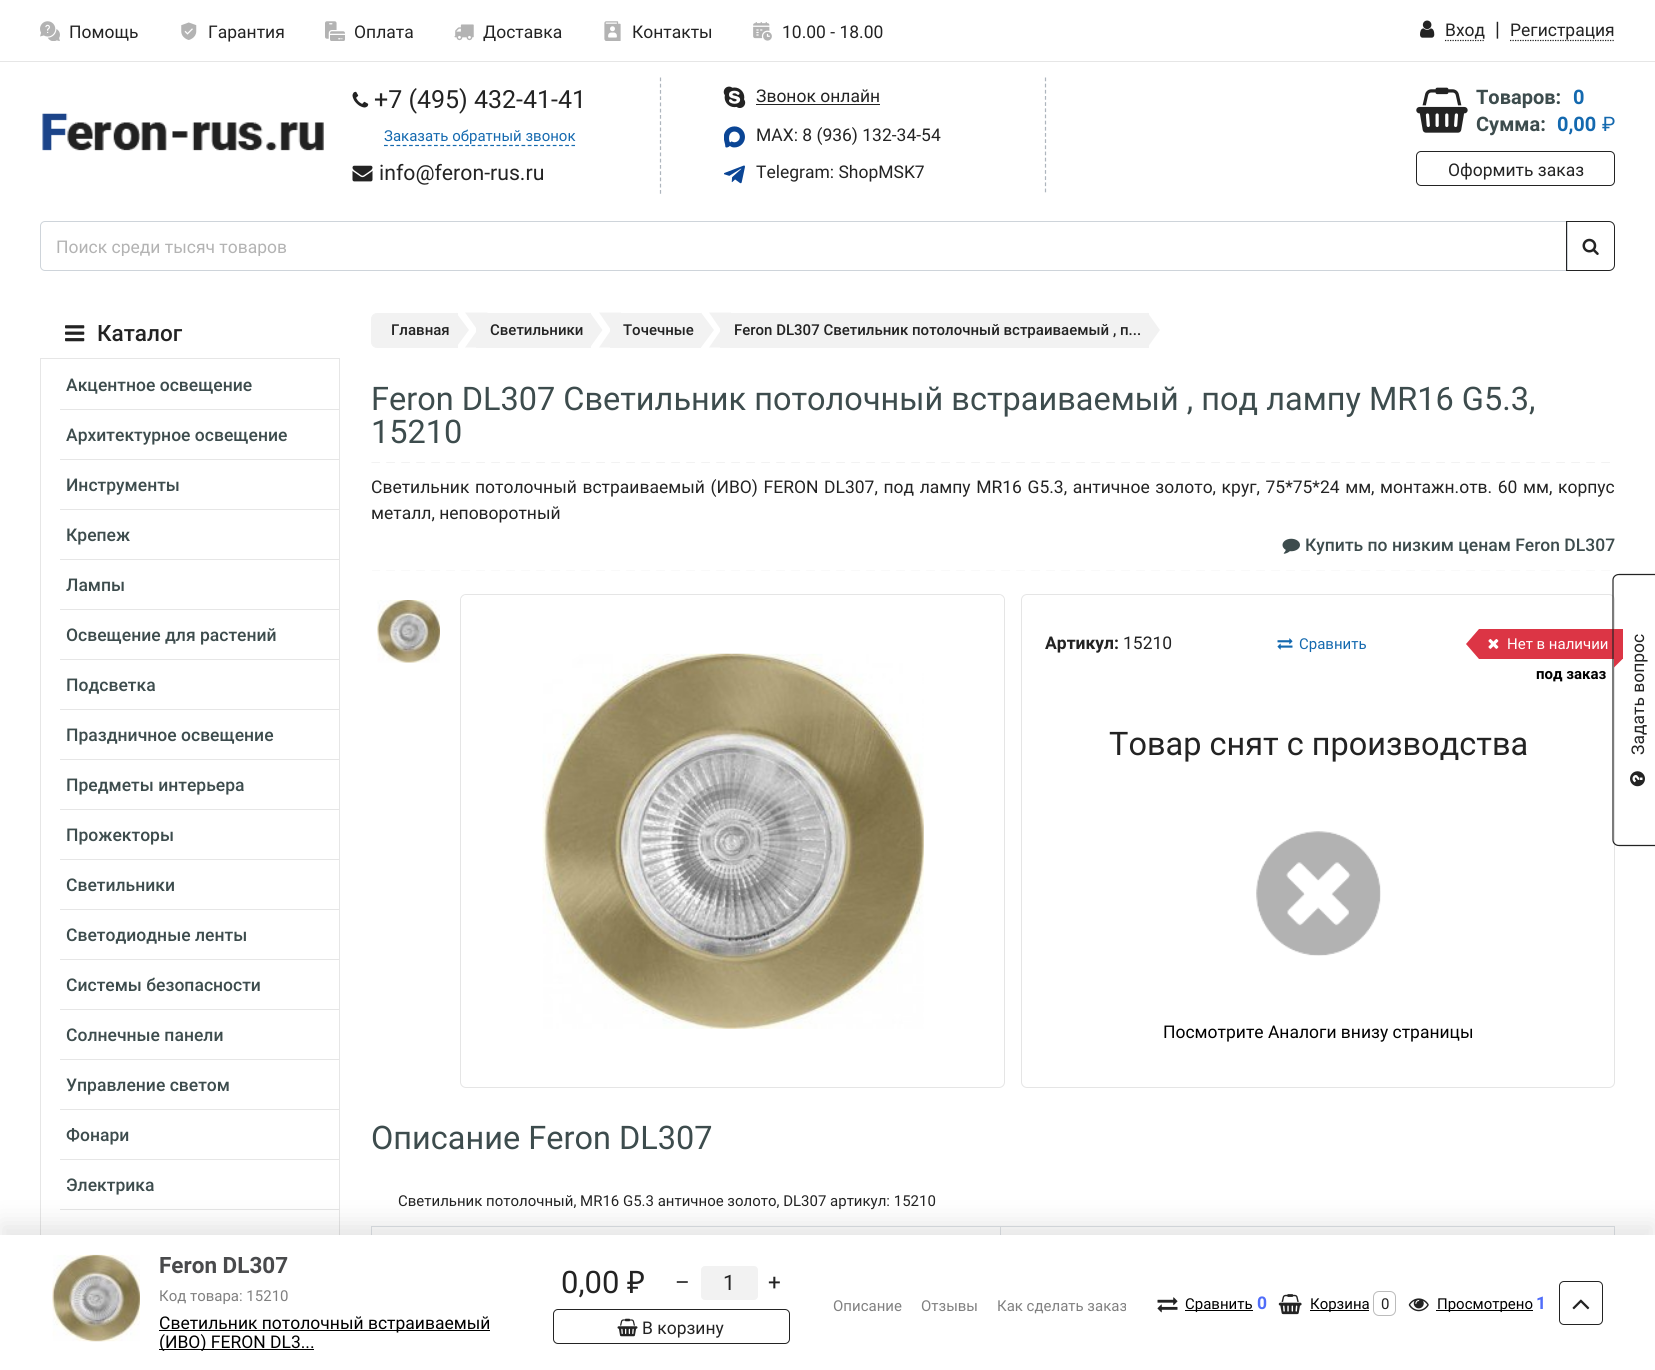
#include <cairo.h>
#include <math.h>
#include <stddef.h>


static void rgb(cairo_t *cr, int r, int g, int b)
{
	cairo_set_source_rgb(cr, r / 255.0, g / 255.0, b / 255.0);
}

static void face(cairo_t *cr, const char *family, double size, int italic, int bold)
{
	cairo_select_font_face(cr, family, italic ? CAIRO_FONT_SLANT_ITALIC : CAIRO_FONT_SLANT_NORMAL,
		bold ? CAIRO_FONT_WEIGHT_BOLD : CAIRO_FONT_WEIGHT_NORMAL);
	cairo_set_font_size(cr, size);
}

static void label(cairo_t *cr, double x, double y, const char *s)
{
	cairo_move_to(cr, x, y);
	cairo_show_text(cr, s);
}

static void tracked(cairo_t *cr, double x, double y, const char *s, double letter, double word)
{
	cairo_move_to(cr, x, y);
	while (*s) {
		char ch[5] = {0};
		int n = 0;
		do ch[n++] = *s++; while ((*s & 0xC0) == 0x80);
		cairo_show_text(cr, ch);
		cairo_rel_move_to(cr, letter + word * (*ch == ' '), 0);
	}
}

static void rect(cairo_t *cr, double x, double y, double w, double h)
{
	cairo_rectangle(cr, x, y, w, h);
	cairo_fill(cr);
}

static void rrect(cairo_t *cr, double x, double y, double w, double h, double r)
{
	cairo_new_sub_path(cr);
	cairo_arc(cr, x + w - r, y + h - r, r, 0, M_PI / 2);
	cairo_arc(cr, x + r, y + h - r, r, M_PI / 2, M_PI);
	cairo_arc(cr, x + r, y + r, r, M_PI, 1.5 * M_PI);
	cairo_arc(cr, x + w - r, y + r, r, 1.5 * M_PI, 2 * M_PI);
	cairo_close_path(cr);
}

static void soft_shadow(cairo_t *cr, double x, double y, double w, double h, double r, double blur, double alpha)
{
	cairo_push_group_with_content(cr, CAIRO_CONTENT_ALPHA);
	cairo_set_operator(cr, CAIRO_OPERATOR_SOURCE);
	for (int i = 15; i >= -15 && fmin(w, h) + blur * i / 3 > 0; i -= 2) {
		double e = blur * i / 6;
		cairo_set_source_rgba(cr, 0, 0, 0, alpha * erfc((i - 1) / 8.5) / 2);
		rrect(cr, x - e, y - e, w + 2 * e, h + 2 * e, fmax(0, fmin(r + e + blur * .6, fmin(w, h) / 2 + e)));
		cairo_fill(cr);
	}
	cairo_pattern_t *soft = cairo_pop_group(cr);
	cairo_mask(cr, soft);
	cairo_pattern_destroy(soft);
}

static void image(cairo_t *cr, const char *path, double x, double y, double w, double h)
{
	cairo_surface_t *image = cairo_image_surface_create_from_png(path);
	cairo_save(cr);
	cairo_set_source_surface(cr, image, x, y);
	cairo_rectangle(cr, x, y, w, h);
	cairo_fill(cr);
	cairo_restore(cr);
	cairo_surface_destroy(image);
}

static void draw(cairo_t *cr) {
	rgb(cr, 255, 255, 255);
	cairo_paint(cr);
	image(cr, "image0.png", 40, 21, 20, 20);
	face(cr, "Roboto", 17.5, 0, 0);
	rgb(cr, 35, 35, 35);
	label(cr, 69, 38, "Помощь");
	image(cr, "image1.png", 181, 22, 16, 18);
	label(cr, 208, 38, "Гарантия");
	image(cr, "image2.png", 325, 21, 20, 20);
	label(cr, 354, 38, "Оплата");
	image(cr, "image3.png", 454, 24, 20, 17);
	label(cr, 483, 38, "Доставка");
	image(cr, "image4.png", 604, 21, 17, 20);
	label(cr, 632, 38, "Контакты");
	image(cr, "image5.png", 753, 22, 19, 19);
	label(cr, 782, 38, "10.00 - 18.00");
	image(cr, "image6.png", 1420, 20, 15, 18);
	label(cr, 1445, 36, "Вход");
	cairo_new_path(cr);
	cairo_move_to(cr, 1445, 40.5);
	cairo_line_to(cr, 1485, 40.5);
	cairo_set_line_width(cr, 1.2);
	cairo_set_dash(cr, (double[]){1.25, 1.25}, 2, 0);
	cairo_stroke(cr);
	face(cr, "Roboto", 20, 0, 0);
	label(cr, 1495, 36, "|");
	cairo_new_path(cr);
	cairo_move_to(cr, 1510, 40.5);
	cairo_line_to(cr, 1615, 40.5);
	cairo_stroke(cr);
	face(cr, "Roboto", 17.5, 0, 0);
	label(cr, 1510, 36, "Регистрация");
	rgb(cr, 230, 230, 230);
	rect(cr, 0, 61, 1655, 1);
	image(cr, "image7.png", 42, 113, 282, 38);
	cairo_new_path(cr);
	cairo_move_to(cr, 660.5, 77.5);
	cairo_line_to(cr, 660.5, 194);
	rgb(cr, 173, 181, 189);
	cairo_set_dash(cr, (double[]){3.75, 2.5}, 2, 0);
	cairo_stroke(cr);
	image(cr, "image8.png", 352, 91, 17, 17);
	face(cr, "Roboto", 25, 0, 0);
	rgb(cr, 35, 35, 35);
	label(cr, 374, 108, "+7 (495) 432-41-41");
	cairo_new_path(cr);
	cairo_move_to(cr, 384, 145.5);
	cairo_line_to(cr, 575, 145.5);
	rgb(cr, 20, 105, 175);
	cairo_stroke(cr);
	face(cr, "Roboto", 15, 0, 0);
	label(cr, 384, 141, "Заказать обратный звонок");
	image(cr, "image9.png", 352, 165, 21, 17);
	face(cr, "Roboto", 21.25, 0, 0);
	rgb(cr, 35, 35, 35);
	label(cr, 379, 180, "info@feron-rus.ru");
	cairo_new_path(cr);
	cairo_move_to(cr, 1045.5, 77.5);
	cairo_line_to(cr, 1045.5, 192.5);
	rgb(cr, 173, 181, 189);
	cairo_set_dash(cr, (double[]){3.75, 2.42}, 2, 0);
	cairo_stroke(cr);
	image(cr, "image10.png", 723, 86, 23, 22);
	face(cr, "Roboto", 17.5, 0, 0);
	rgb(cr, 35, 35, 35);
	label(cr, 756, 102, "Звонок онлайн");
	rect(cr, 756, 104, 124, 1);
	image(cr, "image11.png", 724, 126, 21, 22);
	label(cr, 756, 141, "MAX: 8 (936) 132-34-54");
	image(cr, "image12.png", 724, 165, 21, 19);
	label(cr, 756, 178, "Telegram: ShopMSK7");
	image(cr, "image13.png", 1416, 87, 52, 46);
	face(cr, "Roboto", 20, 0, 1);
	rgb(cr, 61, 76, 77);
	label(cr, 1476, 104, "Товаров:");
	rgb(cr, 20, 105, 175);
	label(cr, 1573, 104, "0");
	rgb(cr, 61, 76, 77);
	label(cr, 1476, 131, "Сумма:");
	rgb(cr, 20, 105, 175);
	label(cr, 1557, 131, "0,00");
	face(cr, "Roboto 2", 20, 0, 0);
	label(cr, 1602, 131, "₽");
	rrect(cr, 1416.5, 151.5, 198, 34, 4.5);
	rgb(cr, 35, 35, 35);
	cairo_set_line_width(cr, 1);
	cairo_set_dash(cr, NULL, 0, 0);
	cairo_stroke(cr);
	face(cr, "Roboto", 17.5, 0, 0);
	label(cr, 1448, 176, "Оформить заказ");
	cairo_new_path(cr);
	cairo_move_to(cr, 45, 221.5);
	cairo_line_to(cr, 1567.5, 221.5);
	cairo_line_to(cr, 1567.5, 270.5);
	cairo_line_to(cr, 45, 270.5);
	cairo_curve_to(cr, 42.5, 270.5, 40.5, 268.5, 40.5, 266);
	cairo_line_to(cr, 40.5, 226);
	cairo_curve_to(cr, 40.5, 223.5, 42.5, 221.5, 45, 221.5);
	cairo_close_path(cr);
	rgb(cr, 206, 212, 218);
	cairo_stroke(cr);
	cairo_save(cr);
	cairo_rectangle(cr, 56, 236, 1478, 20);
	cairo_clip(cr);
	rgb(cr, 179, 179, 179);
	label(cr, 56, 253, "Поиск среди тысяч товаров");
	cairo_restore(cr);
	cairo_new_path(cr);
	cairo_move_to(cr, 1566.5, 221.5);
	cairo_line_to(cr, 1609, 221.5);
	cairo_curve_to(cr, 1612, 221.5, 1614.5, 224, 1614.5, 227);
	cairo_line_to(cr, 1614.5, 265);
	cairo_curve_to(cr, 1614.5, 268, 1612, 270.5, 1609, 270.5);
	cairo_line_to(cr, 1566.5, 270.5);
	cairo_close_path(cr);
	rgb(cr, 35, 35, 35);
	cairo_stroke(cr);
	image(cr, "image14.png", 1582, 238, 17, 17);
	image(cr, "image15.png", 65, 325, 20, 17);
	face(cr, "Roboto Medium", 22.5, 0, 0);
	label(cr, 97, 341, "Каталог");
	cairo_rectangle(cr, 40.5, 358.5, 299, 951);
	rgb(cr, 230, 230, 230);
	cairo_stroke(cr);
	rect(cr, 60, 409, 279, 1);
	face(cr, "Roboto Medium", 17.5, 0, 0);
	rgb(cr, 61, 76, 77);
	label(cr, 66, 391, "Акцентное освещение");
	rgb(cr, 230, 230, 230);
	rect(cr, 60, 459, 279, 1);
	rgb(cr, 61, 76, 77);
	label(cr, 66, 441, "Архитектурное освещение");
	rgb(cr, 230, 230, 230);
	rect(cr, 60, 509, 279, 1);
	rgb(cr, 61, 76, 77);
	label(cr, 66, 491, "Инструменты");
	rgb(cr, 230, 230, 230);
	rect(cr, 60, 559, 279, 1);
	rgb(cr, 61, 76, 77);
	label(cr, 66, 541, "Крепеж");
	rgb(cr, 230, 230, 230);
	rect(cr, 60, 609, 279, 1);
	rgb(cr, 61, 76, 77);
	label(cr, 66, 591, "Лампы");
	rgb(cr, 230, 230, 230);
	rect(cr, 60, 659, 279, 1);
	rgb(cr, 61, 76, 77);
	label(cr, 66, 641, "Освещение для растений");
	rgb(cr, 230, 230, 230);
	rect(cr, 60, 709, 279, 1);
	rgb(cr, 61, 76, 77);
	label(cr, 66, 691, "Подсветка");
	rgb(cr, 230, 230, 230);
	rect(cr, 60, 759, 279, 1);
	rgb(cr, 61, 76, 77);
	label(cr, 66, 741, "Праздничное освещение");
	rgb(cr, 230, 230, 230);
	rect(cr, 60, 809, 279, 1);
	rgb(cr, 61, 76, 77);
	label(cr, 66, 791, "Предметы интерьера");
	rgb(cr, 230, 230, 230);
	rect(cr, 60, 859, 279, 1);
	rgb(cr, 61, 76, 77);
	label(cr, 66, 841, "Прожекторы");
	rgb(cr, 230, 230, 230);
	rect(cr, 60, 909, 279, 1);
	rgb(cr, 61, 76, 77);
	label(cr, 66, 891, "Светильники");
	rgb(cr, 230, 230, 230);
	rect(cr, 60, 959, 279, 1);
	rgb(cr, 61, 76, 77);
	label(cr, 66, 941, "Светодиодные ленты");
	rgb(cr, 230, 230, 230);
	rect(cr, 60, 1009, 279, 1);
	rgb(cr, 61, 76, 77);
	label(cr, 66, 991, "Системы безопасности");
	rgb(cr, 230, 230, 230);
	rect(cr, 60, 1059, 279, 1);
	rgb(cr, 61, 76, 77);
	label(cr, 66, 1041, "Солнечные панели");
	rgb(cr, 230, 230, 230);
	rect(cr, 60, 1109, 279, 1);
	rgb(cr, 61, 76, 77);
	label(cr, 66, 1091, "Управление светом");
	rgb(cr, 230, 230, 230);
	rect(cr, 60, 1159, 279, 1);
	rgb(cr, 61, 76, 77);
	label(cr, 66, 1141, "Фонари");
	rgb(cr, 230, 230, 230);
	rect(cr, 60, 1209, 279, 1);
	rgb(cr, 61, 76, 77);
	label(cr, 66, 1191, "Электрика");
	rgb(cr, 242, 242, 242);
	cairo_new_path(cr);
	cairo_move_to(cr, 377, 313.5);
	cairo_line_to(cr, 457.5, 313.5);
	cairo_line_to(cr, 457.5, 347.5);
	cairo_line_to(cr, 377, 347.5);
	cairo_curve_to(cr, 374, 347.5, 371.5, 345, 371.5, 342);
	cairo_line_to(cr, 371.5, 319);
	cairo_curve_to(cr, 371.5, 316, 374, 313.5, 377, 313.5);
	cairo_close_path(cr);
	cairo_fill_preserve(cr);
	cairo_stroke(cr);
	face(cr, "Roboto Medium", 15, 0, 0);
	rgb(cr, 35, 35, 35);
	label(cr, 391, 335, "Главная");
	rgb(cr, 242, 242, 242);
	cairo_new_path(cr);
	cairo_move_to(cr, 456, 347.5);
	cairo_line_to(cr, 456, 312.5);
	cairo_line_to(cr, 469, 330);
	cairo_close_path(cr);
	cairo_fill(cr);
	rect(cr, 476, 313, 115, 35);
	cairo_new_path(cr);
	cairo_move_to(cr, 465, 312.5);
	cairo_line_to(cr, 487.5, 312.5);
	cairo_line_to(cr, 487.5, 330);
	cairo_line_to(cr, 477.5, 330);
	cairo_close_path(cr);
	cairo_move_to(cr, 487.5, 347.5);
	cairo_line_to(cr, 465, 347.5);
	cairo_line_to(cr, 477.5, 330);
	cairo_line_to(cr, 487.5, 330);
	cairo_close_path(cr);
	cairo_fill(cr);
	rgb(cr, 35, 35, 35);
	label(cr, 490, 335, "Светильники");
	rgb(cr, 242, 242, 242);
	cairo_new_path(cr);
	cairo_move_to(cr, 590, 347.5);
	cairo_line_to(cr, 590, 312.5);
	cairo_line_to(cr, 602.5, 330);
	cairo_close_path(cr);
	cairo_fill(cr);
	rect(cr, 610, 313, 91, 35);
	cairo_new_path(cr);
	cairo_move_to(cr, 599, 312.5);
	cairo_line_to(cr, 621, 312.5);
	cairo_line_to(cr, 621, 330);
	cairo_line_to(cr, 611, 330);
	cairo_close_path(cr);
	cairo_move_to(cr, 621, 347.5);
	cairo_line_to(cr, 599, 347.5);
	cairo_line_to(cr, 611, 330);
	cairo_line_to(cr, 621, 330);
	cairo_close_path(cr);
	cairo_fill(cr);
	rgb(cr, 35, 35, 35);
	label(cr, 623, 335, "Точечные");
	rgb(cr, 242, 242, 242);
	cairo_new_path(cr);
	cairo_move_to(cr, 701, 347.5);
	cairo_line_to(cr, 701, 312.5);
	cairo_line_to(cr, 714, 330);
	cairo_close_path(cr);
	cairo_fill(cr);
	rect(cr, 720, 313, 429, 35);
	cairo_new_path(cr);
	cairo_move_to(cr, 709, 312.5);
	cairo_line_to(cr, 731, 312.5);
	cairo_line_to(cr, 731, 330);
	cairo_line_to(cr, 721, 330);
	cairo_close_path(cr);
	cairo_move_to(cr, 731, 347.5);
	cairo_line_to(cr, 709, 347.5);
	cairo_line_to(cr, 721, 330);
	cairo_line_to(cr, 731, 330);
	cairo_close_path(cr);
	cairo_fill(cr);
	rgb(cr, 35, 35, 35);
	label(cr, 734, 335, "Feron DL307 Светильник потолочный встраиваемый , п...");
	rgb(cr, 242, 242, 242);
	cairo_new_path(cr);
	cairo_move_to(cr, 1147.5, 347.5);
	cairo_line_to(cr, 1147.5, 312.5);
	cairo_line_to(cr, 1160, 330);
	cairo_close_path(cr);
	cairo_fill(cr);
	face(cr, "Roboto", 32.5, 0, 0);
	rgb(cr, 61, 76, 77);
	label(cr, 371, 410, "Feron DL307 Светильник потолочный встраиваемый , под лампу MR16 G5.3,");
	label(cr, 371, 443, "15210");
	image(cr, "image16.png", 371, 462, 1239, 1);
	face(cr, "Roboto", 17.5, 0, 0);
	rgb(cr, 35, 35, 35);
	tracked(cr, 371, 493, "Светильник потолочный встраиваемый (ИВО) FERON DL307, под лампу MR16 G5.3, античное золото, круг, 75*75*24 мм, монтажн.отв. 60 мм, корпус", 0, 1.25);
	label(cr, 371, 519, "металл, неповоротный");
	image(cr, "image17.png", 1282, 538, 18, 16);
	face(cr, "Roboto Medium", 17.5, 0, 0);
	rgb(cr, 61, 76, 77);
	label(cr, 1305, 551, "Купить по низким ценам Feron DL307");
	image(cr, "image18.png", 372, 570, 1238, 1);
	image(cr, "image19.png", 377, 600, 63, 63);
	rrect(cr, 460.5, 594.5, 544, 493, 5.5);
	rgb(cr, 229, 229, 229);
	cairo_stroke(cr);
	rgb(cr, 255, 255, 255);
	rrect(cr, 461, 595, 543, 491, 6);
	cairo_fill(cr);
	image(cr, "image20.png", 542, 653, 382, 376);
	rrect(cr, 1021.5, 594.5, 593, 493, 5.5);
	rgb(cr, 229, 229, 229);
	cairo_stroke(cr);
	face(cr, "Roboto", 17.5, 0, 1);
	rgb(cr, 35, 35, 35);
	label(cr, 1045, 649, "Артикул:");
	face(cr, "Roboto", 17.5, 0, 0);
	label(cr, 1123, 649, "15210");
	image(cr, "image21.png", 1277, 638, 16, 12);
	face(cr, "Roboto", 15, 0, 0);
	rgb(cr, 20, 105, 175);
	label(cr, 1299, 649, "Сравнить");
	rgb(cr, 220, 53, 69);
	rect(cr, 1479, 629, 144, 30);
	cairo_new_path(cr);
	cairo_move_to(cr, 1479, 629);
	cairo_line_to(cr, 1479, 659);
	cairo_line_to(cr, 1466, 644);
	cairo_close_path(cr);
	cairo_fill(cr);
	image(cr, "image22.png", 1488, 639, 11, 10);
	rgb(cr, 255, 255, 255);
	label(cr, 1507, 649, "Нет в наличии");
	rgb(cr, 220, 53, 69);
	cairo_new_path(cr);
	cairo_move_to(cr, 1614, 659);
	cairo_line_to(cr, 1622.5, 659);
	cairo_line_to(cr, 1614, 667.5);
	cairo_close_path(cr);
	cairo_fill(cr);
	face(cr, "Roboto", 15, 0, 1);
	rgb(cr, 0, 0, 0);
	label(cr, 1536, 679, "под заказ");
	face(cr, "Roboto", 32.5, 0, 0);
	rgb(cr, 35, 35, 35);
	label(cr, 1109, 755, "Товар снят с производства");
	image(cr, "image23.png", 1256, 831, 125, 125);
	face(cr, "Roboto", 17.5, 0, 0);
	rgb(cr, 0, 0, 0);
	label(cr, 1163, 1038, "Посмотрите Аналоги внизу страницы");
	face(cr, "Roboto", 32.5, 0, 0);
	rgb(cr, 61, 76, 77);
	label(cr, 371, 1149, "Описание Feron DL307");
	face(cr, "Roboto", 15, 0, 0);
	rgb(cr, 35, 35, 35);
	label(cr, 398, 1206, "Светильник потолочный, MR16 G5.3 античное золото, DL307 артикул: 15210");
	rgb(cr, 222, 226, 230);
	rect(cr, 371, 1226, 1244, 1);
	rect(cr, 1614, 1226, 1, 9);
	rect(cr, 371, 1226, 1, 9);
	rect(cr, 1000, 1226, 1, 9);
	cairo_new_path(cr);
	cairo_move_to(cr, 1613, 840);
	cairo_line_to(cr, 1613, 580);
	cairo_curve_to(cr, 1613, 577, 1615.5, 574.5, 1619, 574.5);
	cairo_line_to(cr, 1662, 574.5);
	cairo_line_to(cr, 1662, 845.5);
	cairo_line_to(cr, 1619, 845.5);
	cairo_curve_to(cr, 1615.5, 845.5, 1613, 843, 1613, 840);
	cairo_close_path(cr);
	rgb(cr, 35, 35, 35);
	cairo_set_line_width(cr, 1.2);
	cairo_stroke(cr);
	face(cr, "Roboto", 17.5, 0, 0);
	cairo_save(cr);
	cairo_translate(cr, 1644, 755);
	cairo_rotate(cr, -90 * M_PI / 180);
	label(cr, 0, 0, "Задать вопрос");
	cairo_restore(cr);
	image(cr, "image24.png", 1630, 771, 15, 16);
	rgb(cr, 0, 0, 0);
	soft_shadow(cr, 0, 1223, 1655, 135, 0, 12.5, 0.1);
	rgb(cr, 255, 255, 255);
	rect(cr, 0, 1235, 1655, 135);
	image(cr, "image25.png", 52, 1254, 88, 88);
	face(cr, "Roboto", 22.5, 0, 1);
	rgb(cr, 73, 74, 76);
	label(cr, 159, 1273, "Feron DL307");
	face(cr, "Roboto", 15, 0, 0);
	rgb(cr, 128, 128, 128);
	label(cr, 159, 1301, "Код товара: 15210");
	rgb(cr, 0, 0, 0);
	rect(cr, 159, 1330, 331, 1);
	face(cr, "Roboto", 17.5, 0, 0);
	label(cr, 159, 1329, "Светильник потолочный встраиваемый");
	rect(cr, 159, 1349, 155, 1);
	cairo_save(cr);
	cairo_rectangle(cr, 159, 1314, 356, 37);
	cairo_clip(cr);
	label(cr, 159, 1348, "(ИВО) FERON DL3...");
	cairo_restore(cr);
	face(cr, "Roboto", 31, 0, 0);
	rgb(cr, 35, 35, 35);
	label(cr, 561, 1293, "0,00");
	face(cr, "Noto Sans", 31, 0, 0);
	label(cr, 627, 1293, "₽");
	face(cr, "Roboto", 22.5, 0, 0);
	label(cr, 675, 1290, "–");
	rgb(cr, 242, 242, 242);
	rrect(cr, 701, 1266, 57, 34, 4);
	cairo_fill(cr);
	face(cr, "Roboto", 21.25, 0, 0);
	rgb(cr, 35, 35, 35);
	label(cr, 723, 1290, "1");
	face(cr, "Roboto", 22.5, 0, 0);
	label(cr, 768, 1290, "+");
	rrect(cr, 553.5, 1309.5, 236, 34, 4.5);
	cairo_set_line_width(cr, 1);
	cairo_stroke(cr);
	image(cr, "image26.png", 617, 1318, 21, 19);
	face(cr, "Roboto", 17.5, 0, 0);
	label(cr, 642, 1334, "В корзину");
	face(cr, "Roboto", 15, 0, 0);
	rgb(cr, 128, 128, 128);
	label(cr, 833, 1311, "Описание");
	label(cr, 921, 1311, "Отзывы");
	label(cr, 997, 1311, "Как сделать заказ");
	image(cr, "image27.png", 1157, 1297, 21, 16);
	rgb(cr, 0, 0, 0);
	rect(cr, 1185, 1310, 68, 1);
	label(cr, 1185, 1309, "Сравнить");
	face(cr, "Roboto", 17.5, 0, 1);
	rgb(cr, 80, 109, 249);
	label(cr, 1257, 1309, "0");
	image(cr, "image28.png", 1278, 1294, 24, 21);
	rgb(cr, 0, 0, 0);
	rect(cr, 1310, 1310, 59, 1);
	face(cr, "Roboto", 15, 0, 0);
	label(cr, 1310, 1309, "Корзина");
	rrect(cr, 1373.5, 1291.5, 22, 24, 5.5);
	rgb(cr, 187, 187, 187);
	cairo_stroke(cr);
	rgb(cr, 35, 35, 35);
	label(cr, 1381, 1309, "0");
	image(cr, "image29.png", 1408, 1298, 21, 14);
	rgb(cr, 0, 0, 0);
	rect(cr, 1436, 1310, 97, 1);
	label(cr, 1437, 1309, "Просмотрено");
	face(cr, "Roboto", 17.5, 0, 1);
	rgb(cr, 80, 109, 249);
	label(cr, 1536, 1309, "1");
	rrect(cr, 1559.5, 1281.5, 43, 43, 4.5);
	rgb(cr, 35, 35, 35);
	cairo_stroke(cr);
	image(cr, "image30.png", 1572, 1299, 18, 11);
}

int main(void) {
	cairo_surface_t *surface = cairo_image_surface_create(CAIRO_FORMAT_RGB24, 1655, 1370);
	cairo_t *cr = cairo_create(surface);
	cairo_font_options_t *options = cairo_font_options_create();
	cairo_font_options_set_hint_metrics(options, CAIRO_HINT_METRICS_OFF);
	cairo_font_options_set_hint_style(options, CAIRO_HINT_STYLE_NONE);
	cairo_set_font_options(cr, options);
	cairo_set_miter_limit(cr, 4);
	draw(cr);
	cairo_surface_write_to_png(surface, "render.png");
	cairo_font_options_destroy(options);
	cairo_destroy(cr);
	cairo_surface_destroy(surface);
	return 0;
}
